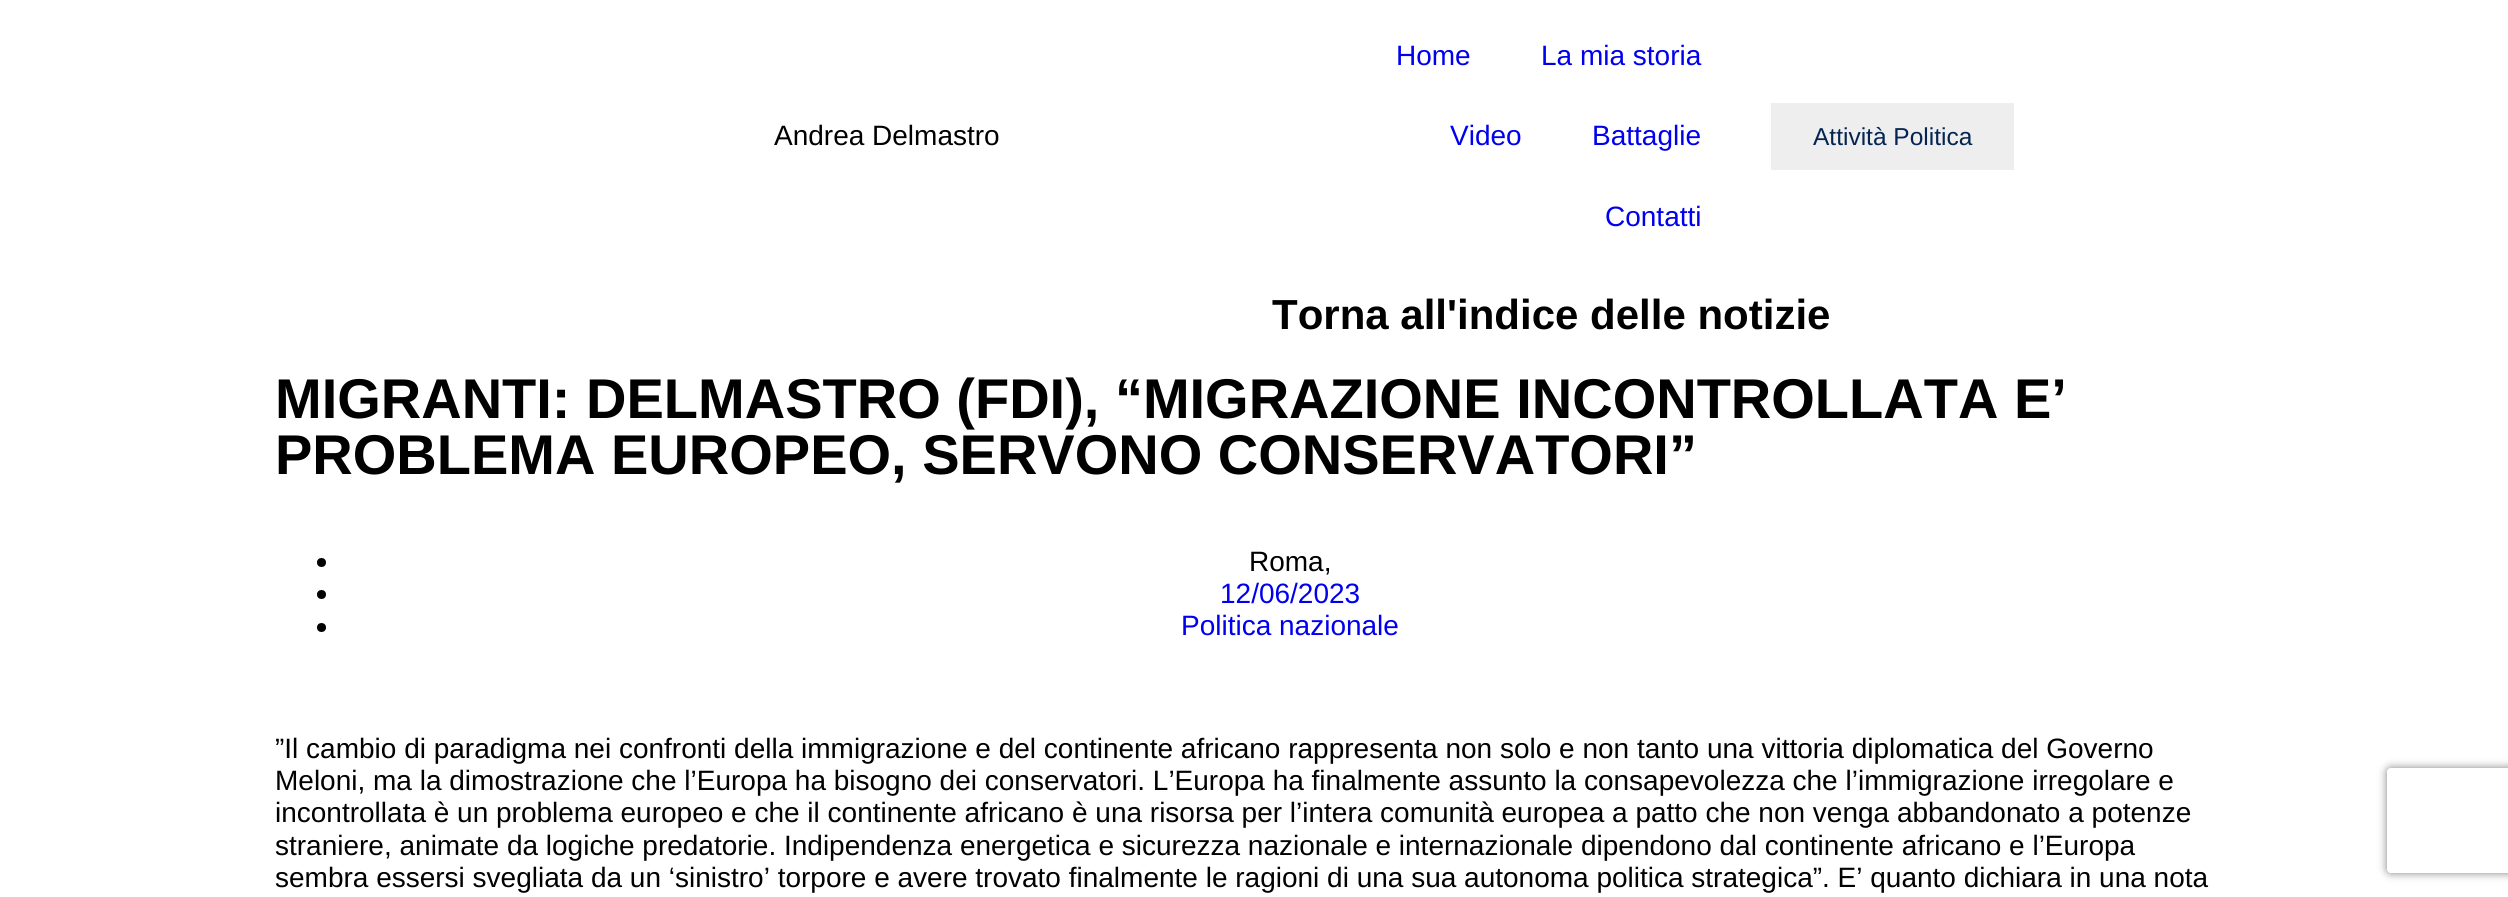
#include <cairo.h>
#include <math.h>
#include <stddef.h>


static void rgb(cairo_t *cr, int r, int g, int b)
{
	cairo_set_source_rgb(cr, r / 255.0, g / 255.0, b / 255.0);
}

static void face(cairo_t *cr, const char *family, double size, int italic, int bold)
{
	cairo_select_font_face(cr, family, italic ? CAIRO_FONT_SLANT_ITALIC : CAIRO_FONT_SLANT_NORMAL,
		bold ? CAIRO_FONT_WEIGHT_BOLD : CAIRO_FONT_WEIGHT_NORMAL);
	cairo_set_font_size(cr, size);
}

static void label(cairo_t *cr, double x, double y, const char *s)
{
	cairo_move_to(cr, x, y);
	cairo_show_text(cr, s);
}

static void rect(cairo_t *cr, double x, double y, double w, double h)
{
	cairo_rectangle(cr, x, y, w, h);
	cairo_fill(cr);
}

static void rrect(cairo_t *cr, double x, double y, double w, double h, double r)
{
	cairo_new_sub_path(cr);
	cairo_arc(cr, x + w - r, y + h - r, r, 0, M_PI / 2);
	cairo_arc(cr, x + r, y + h - r, r, M_PI / 2, M_PI);
	cairo_arc(cr, x + r, y + r, r, M_PI, 1.5 * M_PI);
	cairo_arc(cr, x + w - r, y + r, r, 1.5 * M_PI, 2 * M_PI);
	cairo_close_path(cr);
}

static void soft_shadow(cairo_t *cr, double x, double y, double w, double h, double r, double blur, double alpha)
{
	cairo_push_group_with_content(cr, CAIRO_CONTENT_ALPHA);
	cairo_set_operator(cr, CAIRO_OPERATOR_SOURCE);
	for (int i = 15; i >= -15 && fmin(w, h) + blur * i / 3 > 0; i -= 2) {
		double e = blur * i / 6;
		cairo_set_source_rgba(cr, 0, 0, 0, alpha * erfc((i - 1) / 8.5) / 2);
		rrect(cr, x - e, y - e, w + 2 * e, h + 2 * e, fmax(0, fmin(r + e + blur * .6, fmin(w, h) / 2 + e)));
		cairo_fill(cr);
	}
	cairo_pattern_t *soft = cairo_pop_group(cr);
	cairo_mask(cr, soft);
	cairo_pattern_destroy(soft);
}

static void draw(cairo_t *cr) {
	rgb(cr, 255, 255, 255);
	cairo_paint(cr);
	face(cr, "Liberation Sans", 28, 0, 0);
	rgb(cr, 0, 0, 0);
	label(cr, 774, 145, "Andrea Delmastro");
	rgb(cr, 0, 0, 238);
	label(cr, 1396, 65, "Home");
	label(cr, 1541, 65, "La mia storia");
	label(cr, 1450, 145, "Video");
	label(cr, 1592, 145, "Battaglie");
	label(cr, 1605, 226, "Contatti");
	rgb(cr, 238, 238, 238);
	rect(cr, 1771, 103, 243, 67);
	face(cr, "Liberation Sans", 24.5, 0, 0);
	rgb(cr, 4, 37, 81);
	label(cr, 1813, 145, "Attività Politica");
	face(cr, "Liberation Sans", 42, 0, 1);
	rgb(cr, 0, 0, 0);
	label(cr, 1272, 329, "Torna all'indice delle notizie");
	face(cr, "Liberation Sans", 56, 0, 1);
	label(cr, 275, 418, "MIGRANTI: DELMASTRO (FDI), “MIGRAZIONE INCONTROLLATA E’");
	label(cr, 275, 474, "PROBLEMA EUROPEO, SERVONO CONSERVATORI”");
	cairo_new_path(cr);
	cairo_arc(cr, 321.5, 562.5, 4.5, 0, 2 * M_PI);
	cairo_fill(cr);
	face(cr, "Liberation Sans", 28, 0, 0);
	label(cr, 1249, 571, "Roma,");
	cairo_new_path(cr);
	cairo_arc(cr, 321.5, 594.5, 4.5, 0, 2 * M_PI);
	cairo_fill(cr);
	rgb(cr, 0, 0, 238);
	label(cr, 1220, 603, "12/06/2023");
	rgb(cr, 0, 0, 0);
	cairo_new_path(cr);
	cairo_arc(cr, 321.5, 627.5, 4.5, 0, 2 * M_PI);
	cairo_fill(cr);
	rgb(cr, 0, 0, 238);
	label(cr, 1181, 635, "Politica nazionale");
	rgb(cr, 0, 0, 0);
	label(cr, 275, 758, "”Il cambio di paradigma nei confronti della immigrazione e del continente africano rappresenta non solo e non tanto una vittoria diplomatica del Governo");
	label(cr, 275, 790, "Meloni, ma la dimostrazione che l’Europa ha bisogno dei conservatori. L’Europa ha finalmente assunto la consapevolezza che l’immigrazione irregolare e");
	label(cr, 275, 822, "incontrollata è un problema europeo e che il continente africano è una risorsa per l’intera comunità europea a patto che non venga abbandonato a potenze");
	label(cr, 275, 855, "straniere, animate da logiche predatorie. Indipendenza energetica e sicurezza nazionale e internazionale dipendono dal continente africano e l’Europa");
	label(cr, 275, 887, "sembra essersi svegliata da un ‘sinistro’ torpore e avere trovato finalmente le ragioni di una sua autonoma politica strategica”. E’ quanto dichiara in una nota");
	cairo_save(cr);
	cairo_set_fill_rule(cr, CAIRO_FILL_RULE_EVEN_ODD);
	cairo_new_path(cr);
	cairo_move_to(cr, 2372, 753);
	cairo_line_to(cr, 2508, 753);
	cairo_line_to(cr, 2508, 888);
	cairo_line_to(cr, 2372, 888);
	cairo_close_path(cr);
	cairo_move_to(cr, 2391, 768);
	cairo_line_to(cr, 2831, 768);
	cairo_curve_to(cr, 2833, 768, 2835, 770, 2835, 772);
	cairo_line_to(cr, 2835, 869);
	cairo_curve_to(cr, 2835, 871, 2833, 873, 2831, 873);
	cairo_line_to(cr, 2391, 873);
	cairo_curve_to(cr, 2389, 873, 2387, 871, 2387, 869);
	cairo_line_to(cr, 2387, 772);
	cairo_curve_to(cr, 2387, 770, 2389, 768, 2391, 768);
	cairo_close_path(cr);
	cairo_clip(cr);
	rgb(cr, 128, 128, 128);
	soft_shadow(cr, 2387, 768, 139, 105, 4, 4.5, 1);
	cairo_restore(cr);
}

int main(void) {
	cairo_surface_t *surface = cairo_image_surface_create(CAIRO_FORMAT_RGB24, 2508, 897);
	cairo_t *cr = cairo_create(surface);
	cairo_font_options_t *options = cairo_font_options_create();
	cairo_font_options_set_hint_metrics(options, CAIRO_HINT_METRICS_OFF);
	cairo_font_options_set_hint_style(options, CAIRO_HINT_STYLE_NONE);
	cairo_set_font_options(cr, options);
	cairo_set_miter_limit(cr, 4);
	draw(cr);
	cairo_surface_write_to_png(surface, "render.png");
	cairo_font_options_destroy(options);
	cairo_destroy(cr);
	cairo_surface_destroy(surface);
	return 0;
}
